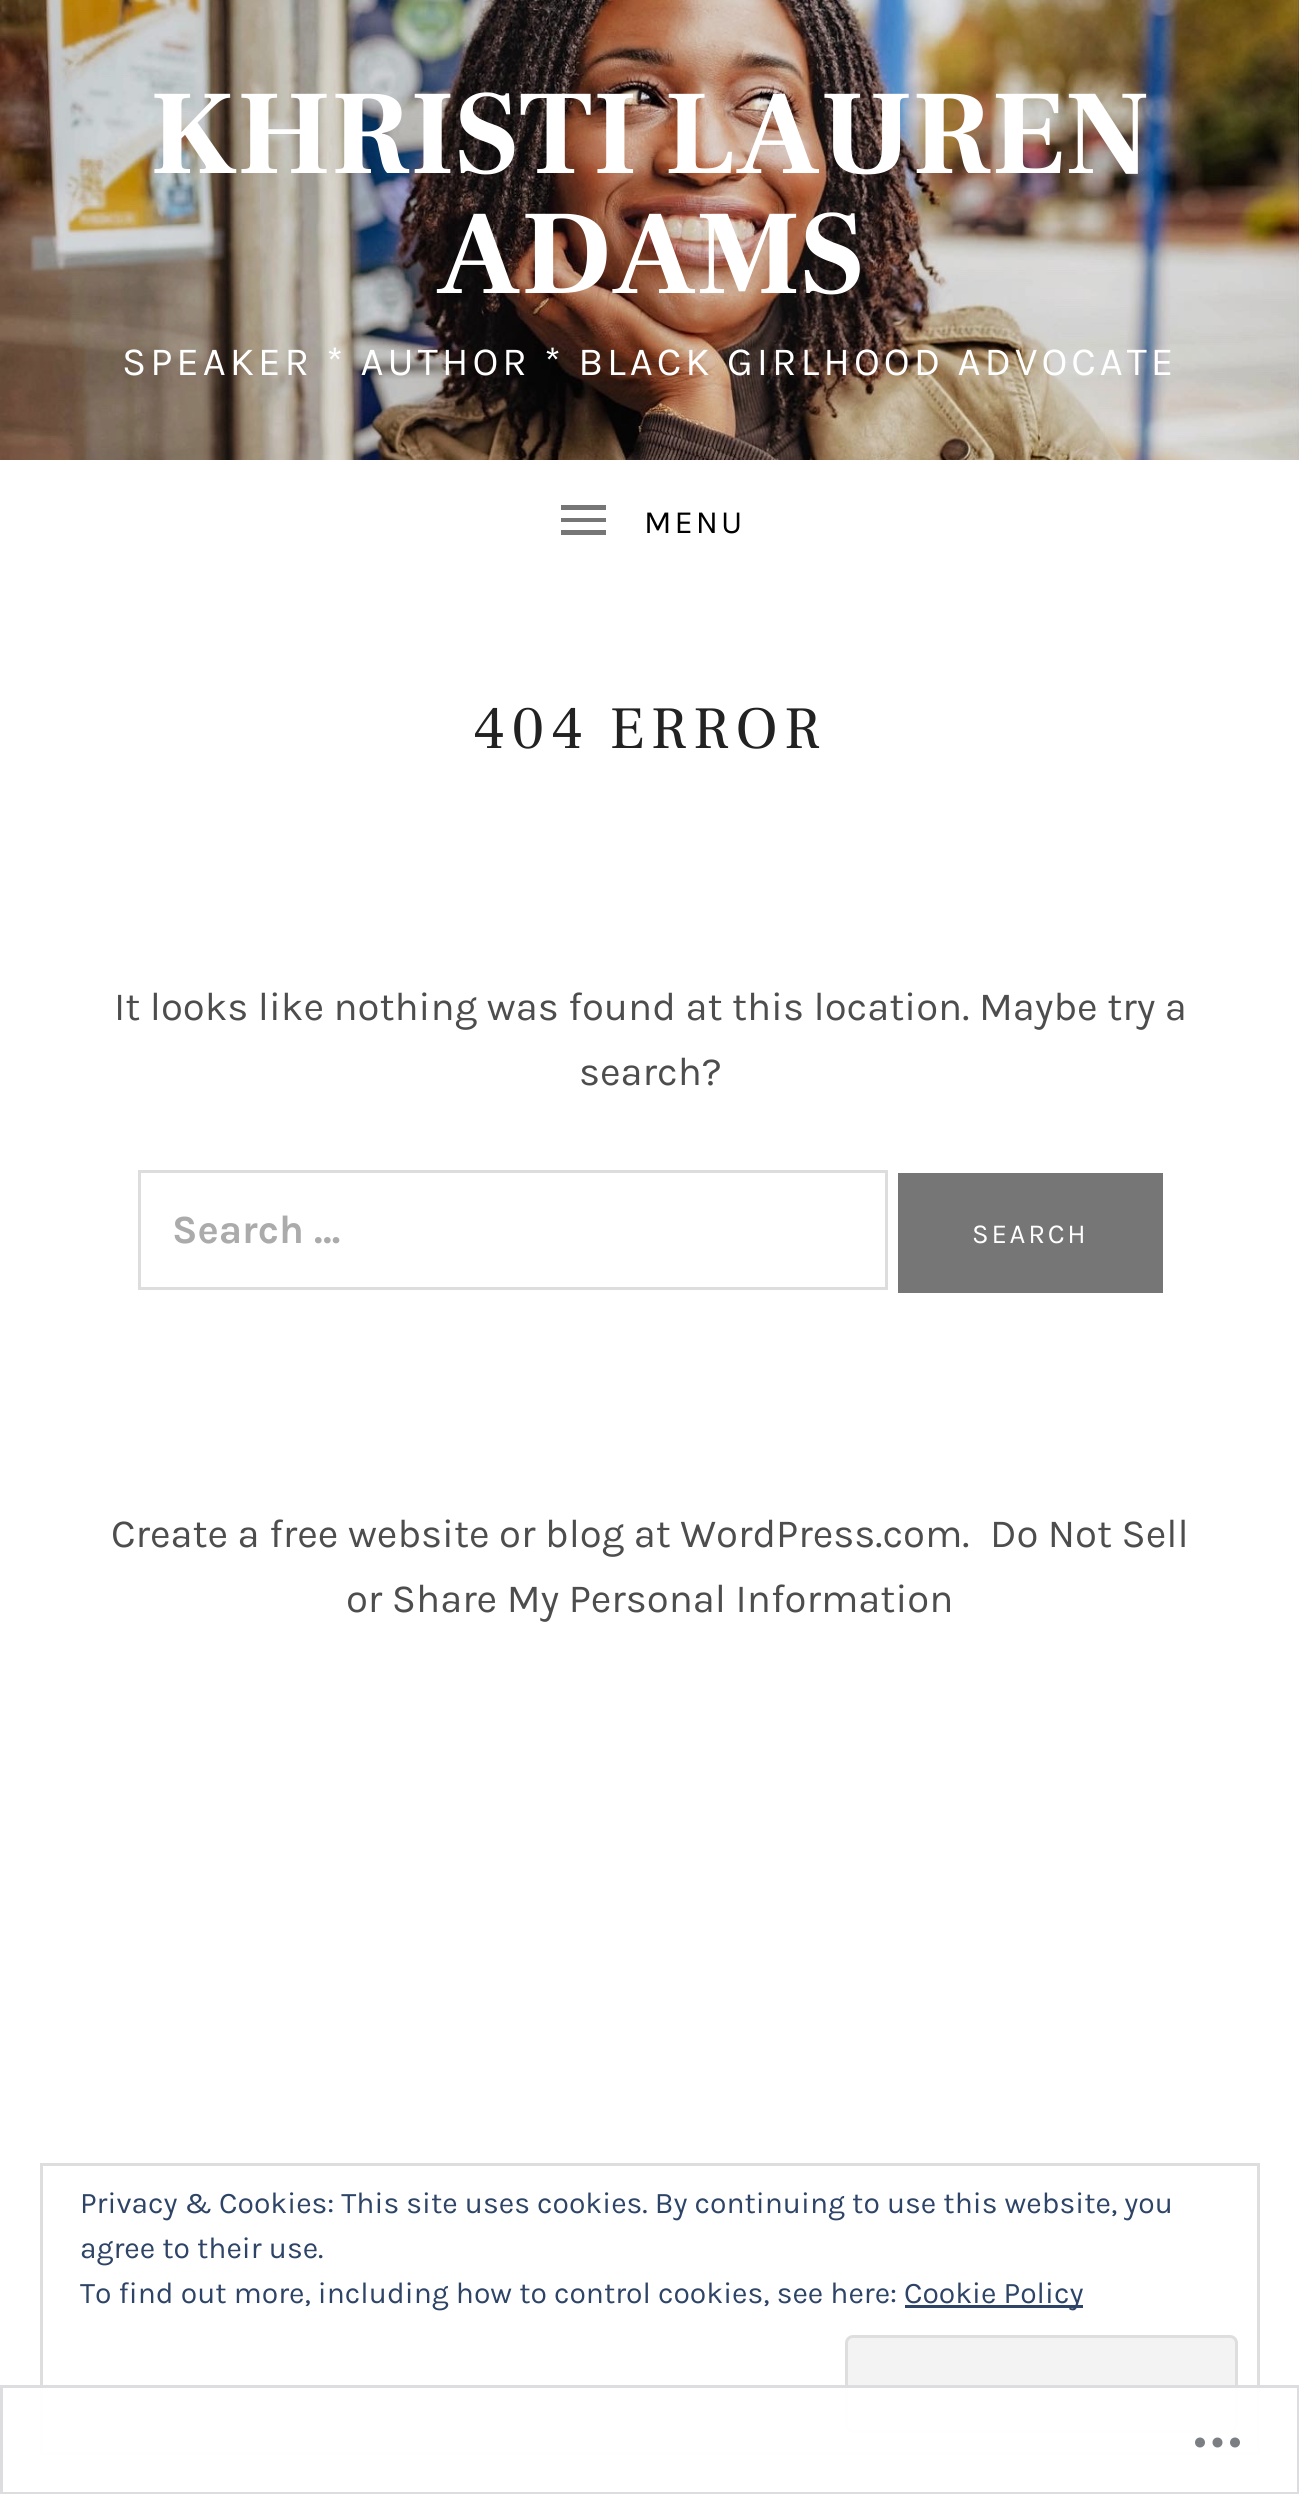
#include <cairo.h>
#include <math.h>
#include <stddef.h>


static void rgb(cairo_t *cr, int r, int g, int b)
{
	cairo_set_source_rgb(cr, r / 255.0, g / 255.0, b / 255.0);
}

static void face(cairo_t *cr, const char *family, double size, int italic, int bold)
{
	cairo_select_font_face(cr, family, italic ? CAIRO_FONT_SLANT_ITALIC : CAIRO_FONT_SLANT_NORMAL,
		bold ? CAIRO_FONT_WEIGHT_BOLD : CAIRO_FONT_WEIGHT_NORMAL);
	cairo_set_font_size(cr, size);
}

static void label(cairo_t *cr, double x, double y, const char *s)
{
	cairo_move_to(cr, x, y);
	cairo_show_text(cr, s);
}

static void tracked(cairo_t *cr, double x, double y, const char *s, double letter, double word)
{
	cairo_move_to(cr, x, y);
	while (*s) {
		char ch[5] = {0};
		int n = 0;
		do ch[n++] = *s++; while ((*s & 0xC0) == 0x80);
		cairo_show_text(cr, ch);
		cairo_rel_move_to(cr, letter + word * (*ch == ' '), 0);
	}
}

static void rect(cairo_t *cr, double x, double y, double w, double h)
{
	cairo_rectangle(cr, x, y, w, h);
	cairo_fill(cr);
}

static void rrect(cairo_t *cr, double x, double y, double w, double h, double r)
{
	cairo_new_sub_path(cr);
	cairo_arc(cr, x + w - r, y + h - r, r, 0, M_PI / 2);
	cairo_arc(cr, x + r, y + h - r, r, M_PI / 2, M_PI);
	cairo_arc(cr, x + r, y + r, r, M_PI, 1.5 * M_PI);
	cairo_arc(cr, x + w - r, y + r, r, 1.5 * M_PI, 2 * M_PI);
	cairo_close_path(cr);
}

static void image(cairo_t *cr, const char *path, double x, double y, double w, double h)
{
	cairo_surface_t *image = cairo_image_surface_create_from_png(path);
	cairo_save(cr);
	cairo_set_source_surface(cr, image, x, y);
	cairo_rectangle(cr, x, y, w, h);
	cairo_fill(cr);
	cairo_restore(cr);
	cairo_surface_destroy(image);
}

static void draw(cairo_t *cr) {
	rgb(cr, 255, 255, 255);
	cairo_paint(cr);
	image(cr, "image0.png", 0, 0, 1299, 460);
	face(cr, "Frank Ruhl Libre", 120, 0, 1);
	rgb(cr, 255, 255, 255);
	label(cr, 150, 173, "KHRISTI LAUREN");
	label(cr, 436, 293, "ADAMS");
	face(cr, "Karla", 40, 0, 0);
	tracked(cr, 122, 375, "SPEAKER * AUTHOR * BLACK GIRLHOOD ADVOCATE", 4, 0);
	rgb(cr, 118, 118, 118);
	cairo_new_path(cr);
	cairo_move_to(cr, 561, 535);
	cairo_line_to(cr, 606, 535);
	cairo_line_to(cr, 606, 530);
	cairo_line_to(cr, 561, 530);
	cairo_close_path(cr);
	cairo_move_to(cr, 561, 522);
	cairo_line_to(cr, 606, 522);
	cairo_line_to(cr, 606, 518);
	cairo_line_to(cr, 561, 518);
	cairo_close_path(cr);
	cairo_move_to(cr, 561, 505);
	cairo_line_to(cr, 561, 510);
	cairo_line_to(cr, 606, 510);
	cairo_line_to(cr, 606, 505);
	cairo_close_path(cr);
	cairo_fill(cr);
	face(cr, "Karla", 32.5, 0, 0);
	rgb(cr, 0, 0, 0);
	tracked(cr, 644, 533, "MENU", 3, 0);
	face(cr, "Frank Ruhl Libre", 60, 0, 0);
	rgb(cr, 34, 34, 34);
	tracked(cr, 473, 748, "404 ERROR", 6, 0);
	face(cr, "Karla", 40, 0, 0);
	rgb(cr, 77, 77, 77);
	label(cr, 114, 1020, "It looks like nothing was found at this location. Maybe try a");
	label(cr, 579, 1085, "search?");
	cairo_rectangle(cr, 139.5, 1171.5, 747, 117);
	rgb(cr, 221, 221, 221);
	cairo_set_line_width(cr, 3);
	cairo_stroke(cr);
	face(cr, "Karla", 40, 0, 1);
	rgb(cr, 171, 171, 171);
	label(cr, 172, 1243, "Search …");
	rgb(cr, 118, 118, 118);
	rect(cr, 898, 1173, 265, 120);
	face(cr, "Karla", 27.5, 0, 0);
	rgb(cr, 255, 255, 255);
	tracked(cr, 972, 1243, "SEARCH", 2.75, 0);
	face(cr, "Karla", 40, 0, 0);
	rgb(cr, 77, 77, 77);
	label(cr, 111, 1547, "Create a free website or blog at WordPress.com.");
	label(cr, 990, 1547, "Do Not Sell");
	label(cr, 346, 1612, "or Share My Personal Information");
	cairo_rectangle(cr, 41.5, 2164.5, 1217, 289);
	rgb(cr, 222, 222, 222);
	cairo_stroke(cr);
	face(cr, "Karla", 30, 0, 0);
	rgb(cr, 46, 68, 103);
	label(cr, 80, 2213, "Privacy & Cookies: This site uses cookies. By continuing to use this website, you");
	label(cr, 80, 2258, "agree to their use.");
	label(cr, 80, 2303, "To find out more, including how to control cookies, see here:");
	rect(cr, 905, 2305, 178, 3);
	label(cr, 904, 2303, "Cookie Policy");
	rgb(cr, 243, 243, 243);
	rrect(cr, 846.5, 2336.5, 390, 95, 6.5);
	cairo_fill_preserve(cr);
	rgb(cr, 222, 222, 222);
	cairo_stroke(cr);
	cairo_set_source_rgba(cr, 1, 1, 1, 0.98);
	rect(cr, 40, 2385, 1220, 70);
	cairo_rectangle(cr, 1.5, 2386.5, 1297, 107);
	cairo_set_source_rgba(cr, 0.863, 0.863, 0.871, 0.98);
	cairo_stroke(cr);
	image(cr, "image1.png", 1195, 2437, 45, 11);
}

int main(void) {
	cairo_surface_t *surface = cairo_image_surface_create(CAIRO_FORMAT_RGB24, 1299, 2494);
	cairo_t *cr = cairo_create(surface);
	cairo_font_options_t *options = cairo_font_options_create();
	cairo_font_options_set_hint_metrics(options, CAIRO_HINT_METRICS_OFF);
	cairo_font_options_set_hint_style(options, CAIRO_HINT_STYLE_NONE);
	cairo_set_font_options(cr, options);
	cairo_set_miter_limit(cr, 4);
	draw(cr);
	cairo_surface_write_to_png(surface, "render.png");
	cairo_font_options_destroy(options);
	cairo_destroy(cr);
	cairo_surface_destroy(surface);
	return 0;
}
